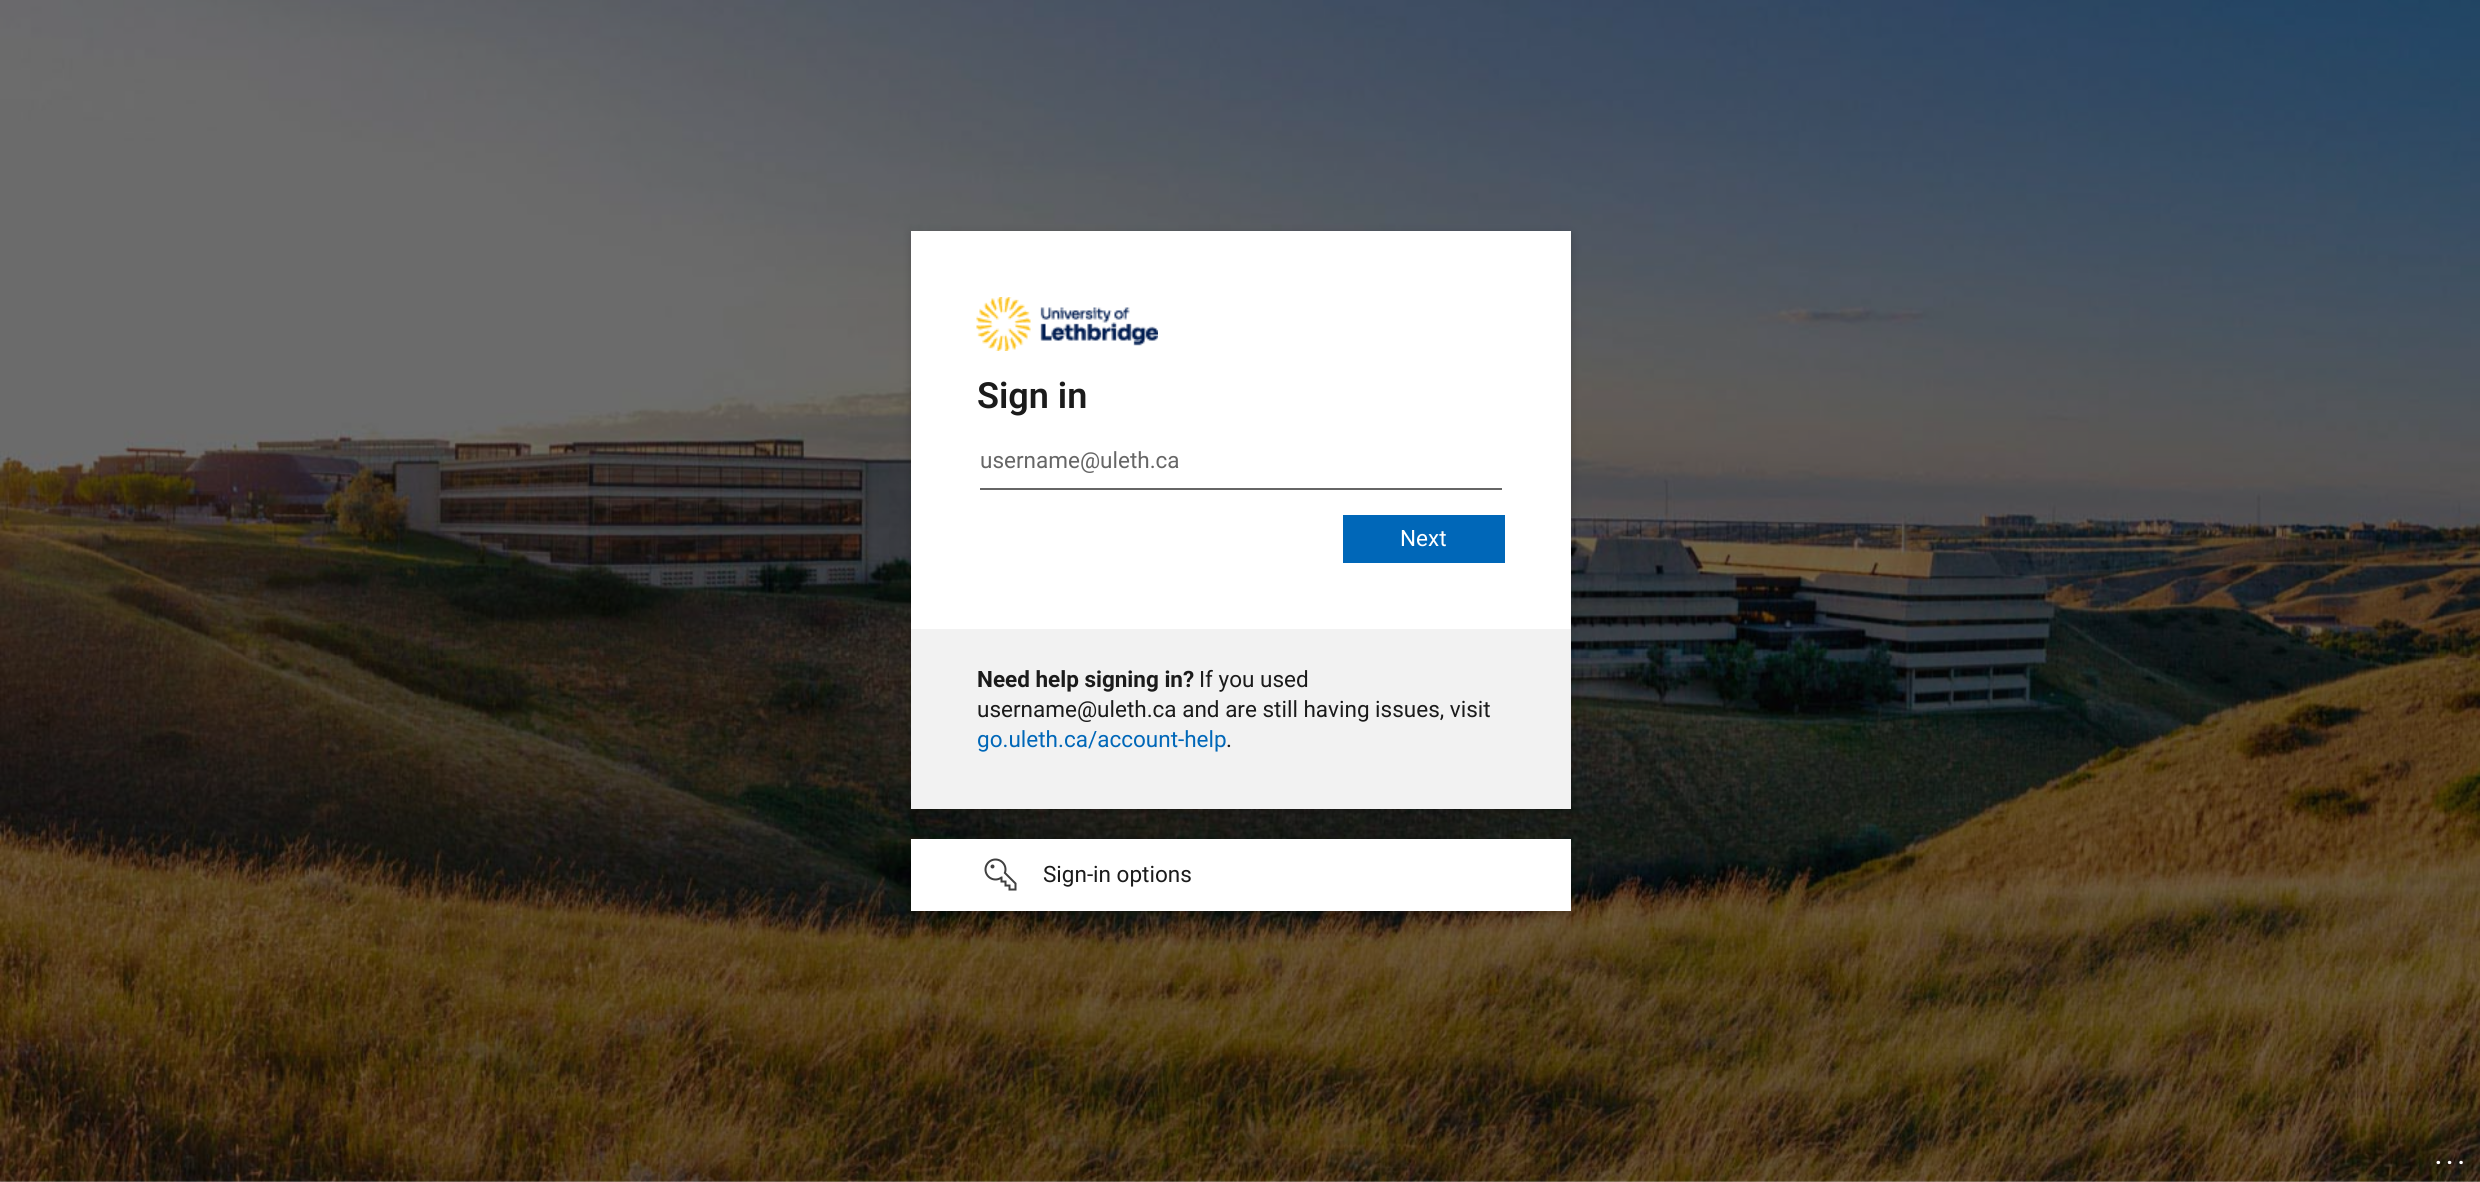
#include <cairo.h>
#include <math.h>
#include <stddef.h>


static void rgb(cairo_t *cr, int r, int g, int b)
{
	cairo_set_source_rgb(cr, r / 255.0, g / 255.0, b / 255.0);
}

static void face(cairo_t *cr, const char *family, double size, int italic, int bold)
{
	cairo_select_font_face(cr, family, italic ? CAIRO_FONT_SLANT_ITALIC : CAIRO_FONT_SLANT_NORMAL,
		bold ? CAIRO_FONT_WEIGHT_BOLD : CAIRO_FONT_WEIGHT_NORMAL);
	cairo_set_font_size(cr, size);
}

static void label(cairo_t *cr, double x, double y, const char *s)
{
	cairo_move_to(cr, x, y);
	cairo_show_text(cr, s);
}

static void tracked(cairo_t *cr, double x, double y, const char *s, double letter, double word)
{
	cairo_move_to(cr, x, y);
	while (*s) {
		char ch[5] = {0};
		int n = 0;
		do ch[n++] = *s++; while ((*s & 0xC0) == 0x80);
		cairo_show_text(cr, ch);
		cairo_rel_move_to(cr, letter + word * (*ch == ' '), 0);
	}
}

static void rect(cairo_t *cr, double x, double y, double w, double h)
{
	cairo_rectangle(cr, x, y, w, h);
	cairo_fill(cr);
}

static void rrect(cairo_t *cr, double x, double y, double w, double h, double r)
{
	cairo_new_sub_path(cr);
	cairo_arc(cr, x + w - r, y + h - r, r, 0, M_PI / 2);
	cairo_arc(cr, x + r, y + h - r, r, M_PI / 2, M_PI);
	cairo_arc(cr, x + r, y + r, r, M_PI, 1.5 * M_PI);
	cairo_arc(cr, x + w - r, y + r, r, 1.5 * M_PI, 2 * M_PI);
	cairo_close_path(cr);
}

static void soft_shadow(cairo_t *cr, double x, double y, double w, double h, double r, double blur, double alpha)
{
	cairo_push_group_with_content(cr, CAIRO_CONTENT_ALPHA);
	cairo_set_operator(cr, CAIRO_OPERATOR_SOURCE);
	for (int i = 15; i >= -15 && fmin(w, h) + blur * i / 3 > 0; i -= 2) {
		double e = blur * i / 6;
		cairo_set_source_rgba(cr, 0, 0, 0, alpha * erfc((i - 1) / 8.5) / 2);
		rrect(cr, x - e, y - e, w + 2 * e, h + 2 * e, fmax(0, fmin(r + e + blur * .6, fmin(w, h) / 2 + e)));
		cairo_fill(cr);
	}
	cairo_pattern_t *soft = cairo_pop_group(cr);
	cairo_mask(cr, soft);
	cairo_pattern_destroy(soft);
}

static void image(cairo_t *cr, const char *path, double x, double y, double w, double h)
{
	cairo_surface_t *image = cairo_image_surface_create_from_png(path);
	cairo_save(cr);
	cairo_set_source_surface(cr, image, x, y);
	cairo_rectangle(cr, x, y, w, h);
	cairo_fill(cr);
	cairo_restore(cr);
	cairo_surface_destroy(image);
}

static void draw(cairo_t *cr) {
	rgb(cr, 255, 255, 255);
	cairo_paint(cr);
	image(cr, "image0.png", 0, 0, 2480, 1182);
	rgb(cr, 0, 0, 0);
	soft_shadow(cr, 911, 234, 660, 578, 0, 4.5, 0.2);
	rgb(cr, 255, 255, 255);
	rect(cr, 911, 231, 660, 398);
	image(cr, "image1.png", 976, 297, 182, 54);
	face(cr, "Roboto SemiBold", 36, 0, 0);
	rgb(cr, 27, 27, 27);
	label(cr, 977, 408, "Sign in");
	rgb(cr, 102, 102, 102);
	rect(cr, 980, 488, 522, 2);
	face(cr, "Roboto", 22.5, 0, 0);
	label(cr, 980, 468, "username@uleth.ca");
	rgb(cr, 0, 103, 184);
	rect(cr, 1343, 515, 162, 48);
	rgb(cr, 255, 255, 255);
	label(cr, 1400, 546, "Next");
	rgb(cr, 242, 242, 242);
	rect(cr, 911, 629, 660, 180);
	face(cr, "Roboto", 22.5, 0, 1);
	rgb(cr, 27, 27, 27);
	label(cr, 977, 687, "Need help signing in?");
	face(cr, "Roboto", 22.5, 0, 0);
	label(cr, 1199, 687, "If you used");
	label(cr, 977, 717, "username@uleth.ca and are still having issues, visit");
	rgb(cr, 0, 103, 184);
	label(cr, 977, 747, "go.uleth.ca/account-help");
	rgb(cr, 27, 27, 27);
	label(cr, 1226, 747, ".");
	rgb(cr, 0, 0, 0);
	soft_shadow(cr, 911, 842, 660, 72, 0, 4.5, 0.2);
	rgb(cr, 255, 255, 255);
	rect(cr, 911, 839, 660, 72);
	image(cr, "image2.png", 984, 858, 33, 33);
	rgb(cr, 27, 27, 27);
	label(cr, 1043, 882, "Sign-in options");
	face(cr, "Roboto SemiBold", 24, 0, 0);
	rgb(cr, 255, 255, 255);
	tracked(cr, 2435, 1164, "...", 4.5, 0);
}

int main(void) {
	cairo_surface_t *surface = cairo_image_surface_create(CAIRO_FORMAT_RGB24, 2480, 1182);
	cairo_t *cr = cairo_create(surface);
	cairo_font_options_t *options = cairo_font_options_create();
	cairo_font_options_set_hint_metrics(options, CAIRO_HINT_METRICS_OFF);
	cairo_font_options_set_hint_style(options, CAIRO_HINT_STYLE_NONE);
	cairo_set_font_options(cr, options);
	cairo_set_miter_limit(cr, 4);
	draw(cr);
	cairo_surface_write_to_png(surface, "render.png");
	cairo_font_options_destroy(options);
	cairo_destroy(cr);
	cairo_surface_destroy(surface);
	return 0;
}
